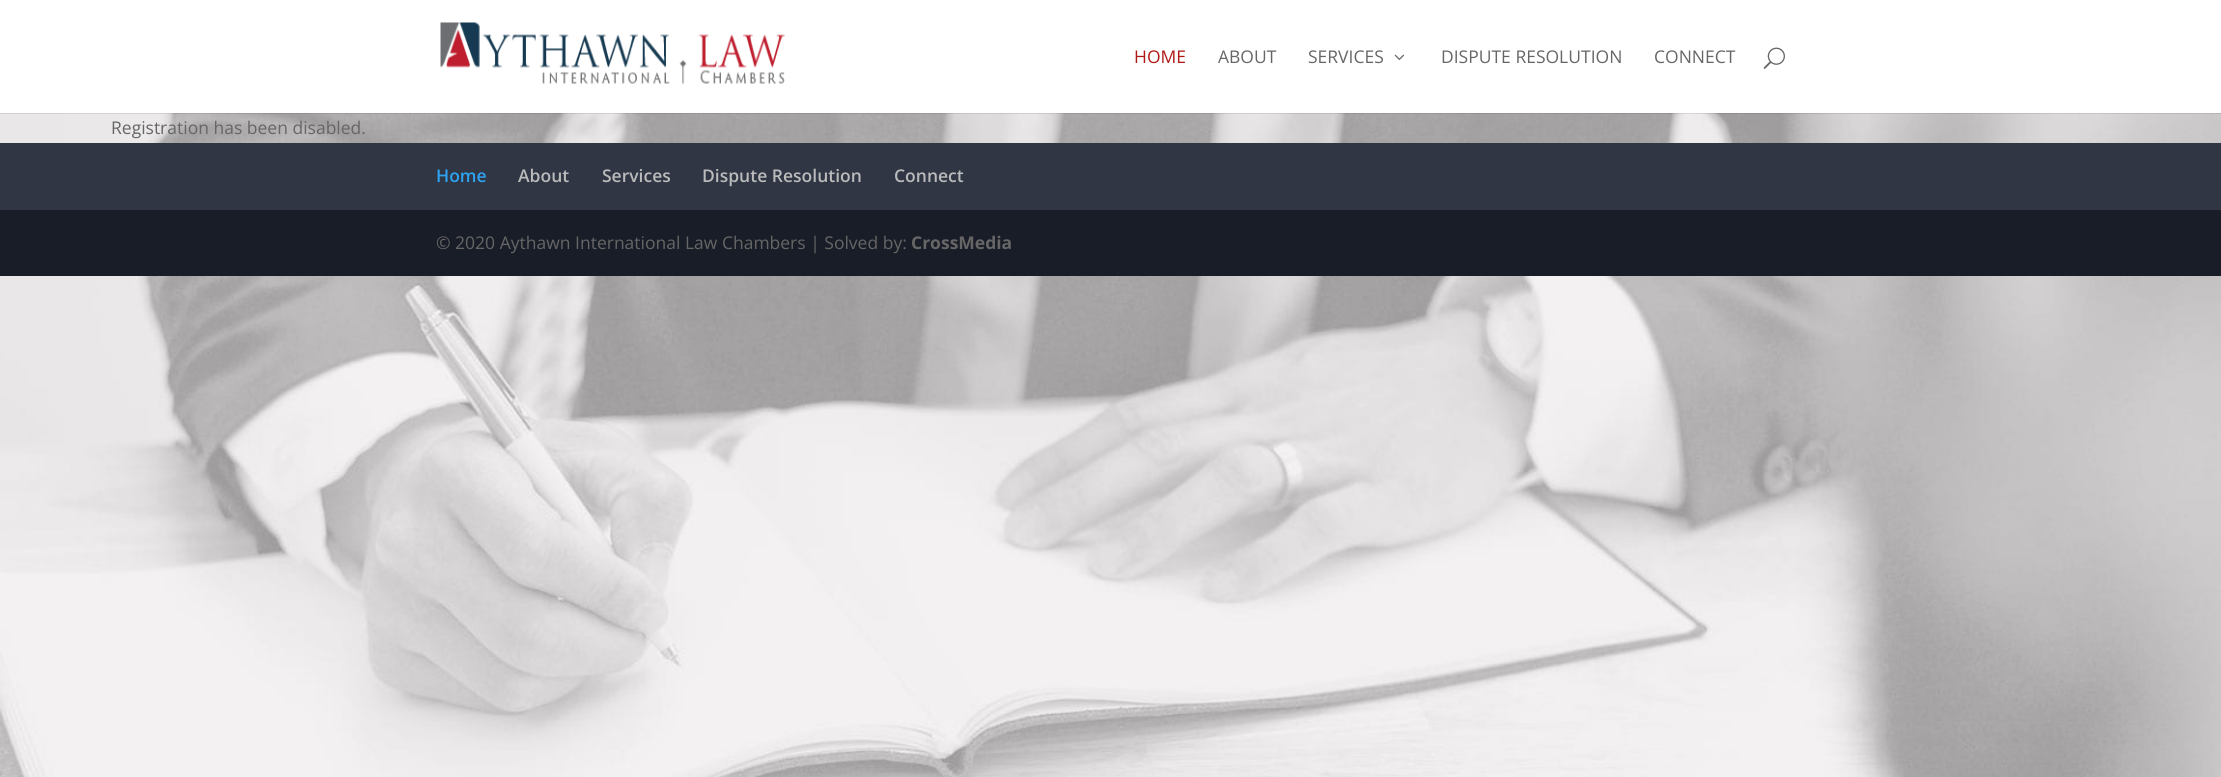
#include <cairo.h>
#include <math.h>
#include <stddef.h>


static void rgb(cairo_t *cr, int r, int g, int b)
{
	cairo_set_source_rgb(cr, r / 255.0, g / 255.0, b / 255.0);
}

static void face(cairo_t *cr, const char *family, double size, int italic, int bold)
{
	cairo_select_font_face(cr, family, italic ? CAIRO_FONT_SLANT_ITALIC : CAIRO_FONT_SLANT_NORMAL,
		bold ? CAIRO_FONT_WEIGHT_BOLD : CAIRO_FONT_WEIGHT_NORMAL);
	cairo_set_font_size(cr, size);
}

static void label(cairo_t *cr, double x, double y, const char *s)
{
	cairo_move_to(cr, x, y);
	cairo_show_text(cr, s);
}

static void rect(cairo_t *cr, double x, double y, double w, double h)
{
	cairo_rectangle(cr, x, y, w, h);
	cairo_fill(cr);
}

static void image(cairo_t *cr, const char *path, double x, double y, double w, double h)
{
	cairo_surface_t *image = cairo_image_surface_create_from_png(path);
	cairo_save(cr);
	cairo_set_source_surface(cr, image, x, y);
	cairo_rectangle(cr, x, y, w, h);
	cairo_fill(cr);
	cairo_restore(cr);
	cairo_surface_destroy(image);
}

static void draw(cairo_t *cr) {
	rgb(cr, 255, 255, 255);
	cairo_paint(cr);
	image(cr, "image0.png", 0, 113, 2221, 664);
	cairo_set_source_rgba(cr, 0, 0, 0, 0.1);
	rect(cr, 0, 113, 2221, 1);
	image(cr, "image1.png", 440, 22, 345, 63);
	face(cr, "Open Sans", 17.5, 0, 0);
	rgb(cr, 175, 25, 22);
	label(cr, 1134, 63, "HOME");
	rgb(cr, 102, 102, 102);
	label(cr, 1218, 63, "ABOUT");
	label(cr, 1308, 63, "SERVICES");
	image(cr, "image2.png", 1394, 54, 10, 6);
	label(cr, 1441, 63, "DISPUTE RESOLUTION");
	label(cr, 1654, 63, "CONNECT");
	image(cr, "image3.png", 1763, 47, 22, 22);
	label(cr, 111, 134, "Registration has been disabled.");
	rgb(cr, 48, 54, 68);
	rect(cr, 0, 143, 2221, 67);
	face(cr, "Open Sans SemiBold", 17.5, 0, 0);
	rgb(cr, 46, 163, 242);
	label(cr, 436, 182, "Home");
	rgb(cr, 187, 187, 187);
	label(cr, 518, 182, "About");
	label(cr, 602, 182, "Services");
	label(cr, 702, 182, "Dispute Resolution");
	label(cr, 894, 182, "Connect");
	rgb(cr, 25, 29, 39);
	rect(cr, 0, 210, 2221, 66);
	face(cr, "Open Sans", 17.5, 0, 0);
	rgb(cr, 102, 102, 102);
	label(cr, 436, 249, "© 2020 Aythawn International Law Chambers | Solved by:");
	face(cr, "Open Sans", 17.5, 0, 1);
	label(cr, 911, 249, "CrossMedia");
}

int main(void) {
	cairo_surface_t *surface = cairo_image_surface_create(CAIRO_FORMAT_RGB24, 2221, 777);
	cairo_t *cr = cairo_create(surface);
	cairo_font_options_t *options = cairo_font_options_create();
	cairo_font_options_set_hint_metrics(options, CAIRO_HINT_METRICS_OFF);
	cairo_font_options_set_hint_style(options, CAIRO_HINT_STYLE_NONE);
	cairo_set_font_options(cr, options);
	cairo_set_miter_limit(cr, 4);
	draw(cr);
	cairo_surface_write_to_png(surface, "render.png");
	cairo_font_options_destroy(options);
	cairo_destroy(cr);
	cairo_surface_destroy(surface);
	return 0;
}
